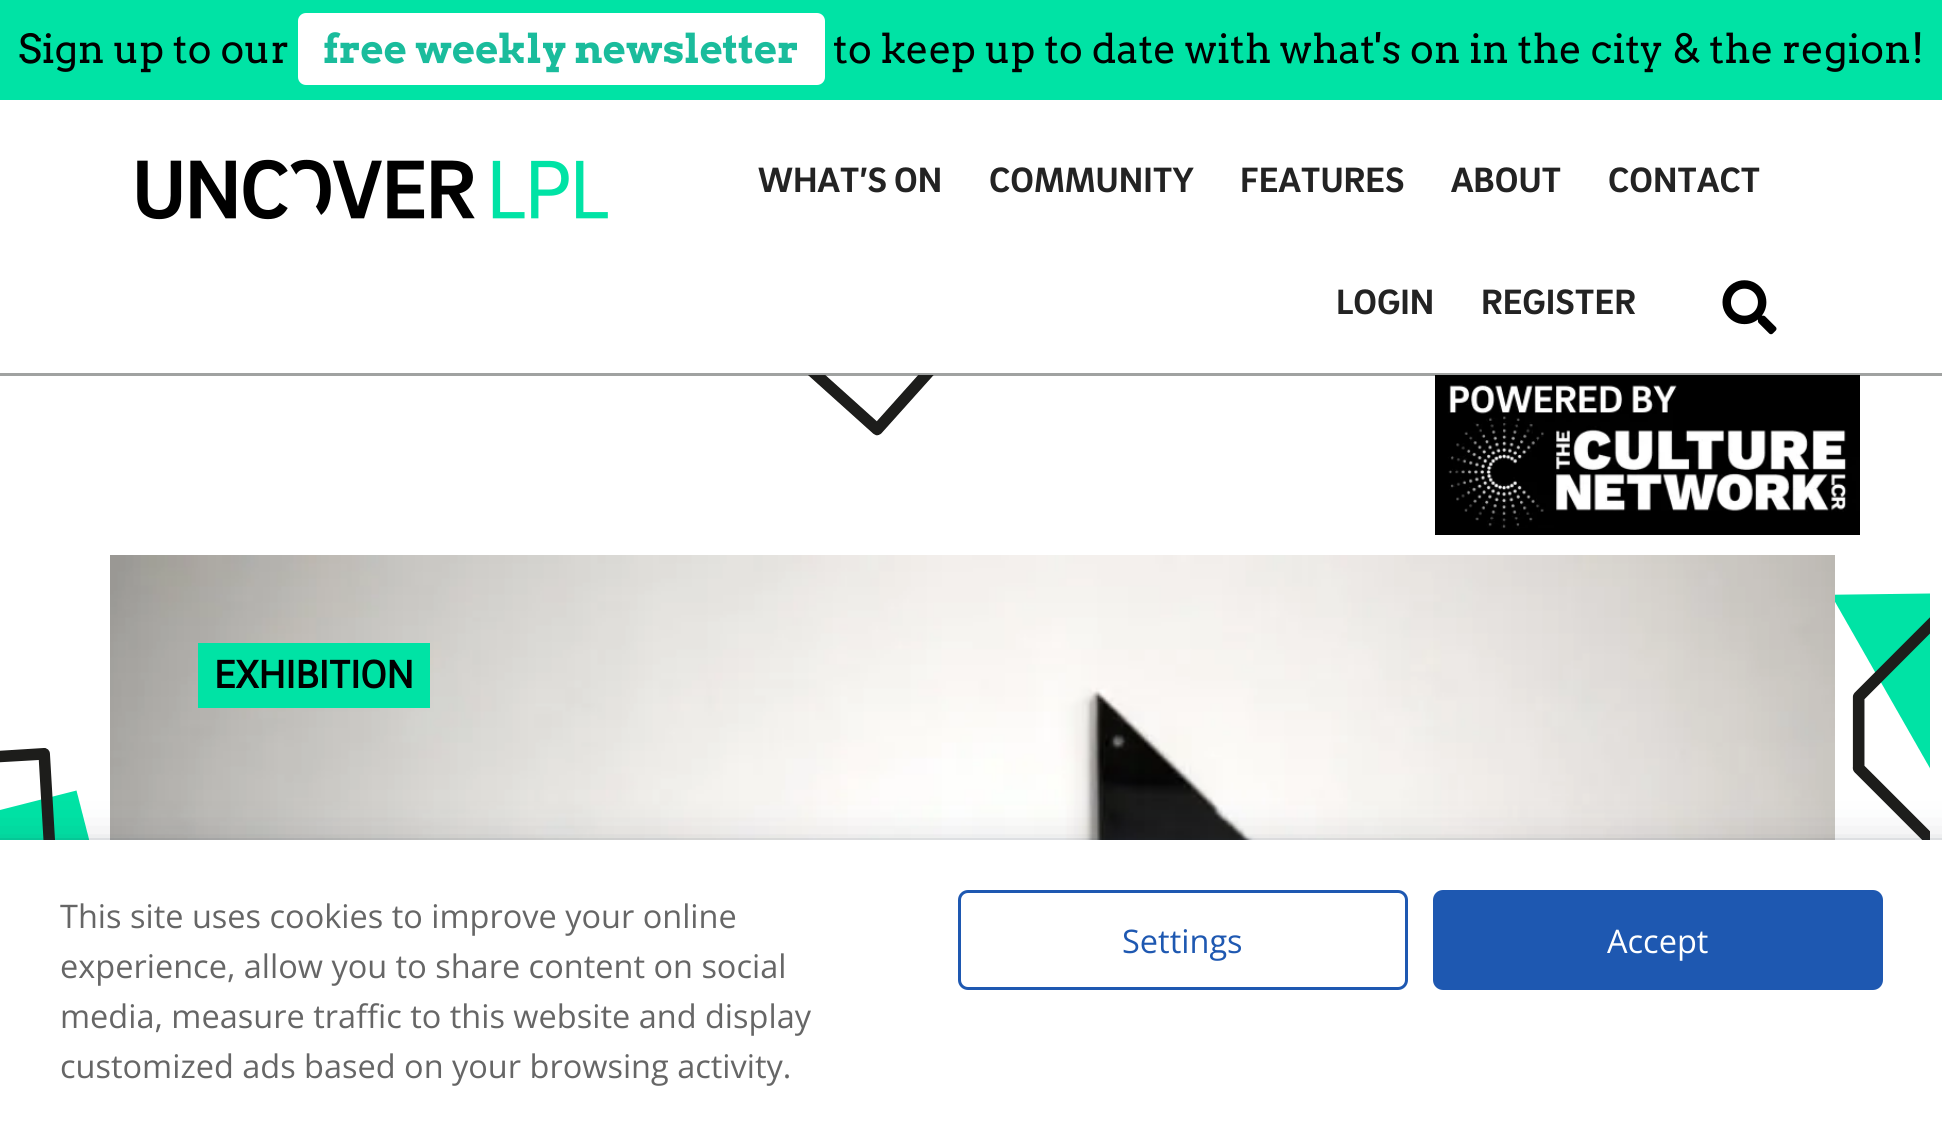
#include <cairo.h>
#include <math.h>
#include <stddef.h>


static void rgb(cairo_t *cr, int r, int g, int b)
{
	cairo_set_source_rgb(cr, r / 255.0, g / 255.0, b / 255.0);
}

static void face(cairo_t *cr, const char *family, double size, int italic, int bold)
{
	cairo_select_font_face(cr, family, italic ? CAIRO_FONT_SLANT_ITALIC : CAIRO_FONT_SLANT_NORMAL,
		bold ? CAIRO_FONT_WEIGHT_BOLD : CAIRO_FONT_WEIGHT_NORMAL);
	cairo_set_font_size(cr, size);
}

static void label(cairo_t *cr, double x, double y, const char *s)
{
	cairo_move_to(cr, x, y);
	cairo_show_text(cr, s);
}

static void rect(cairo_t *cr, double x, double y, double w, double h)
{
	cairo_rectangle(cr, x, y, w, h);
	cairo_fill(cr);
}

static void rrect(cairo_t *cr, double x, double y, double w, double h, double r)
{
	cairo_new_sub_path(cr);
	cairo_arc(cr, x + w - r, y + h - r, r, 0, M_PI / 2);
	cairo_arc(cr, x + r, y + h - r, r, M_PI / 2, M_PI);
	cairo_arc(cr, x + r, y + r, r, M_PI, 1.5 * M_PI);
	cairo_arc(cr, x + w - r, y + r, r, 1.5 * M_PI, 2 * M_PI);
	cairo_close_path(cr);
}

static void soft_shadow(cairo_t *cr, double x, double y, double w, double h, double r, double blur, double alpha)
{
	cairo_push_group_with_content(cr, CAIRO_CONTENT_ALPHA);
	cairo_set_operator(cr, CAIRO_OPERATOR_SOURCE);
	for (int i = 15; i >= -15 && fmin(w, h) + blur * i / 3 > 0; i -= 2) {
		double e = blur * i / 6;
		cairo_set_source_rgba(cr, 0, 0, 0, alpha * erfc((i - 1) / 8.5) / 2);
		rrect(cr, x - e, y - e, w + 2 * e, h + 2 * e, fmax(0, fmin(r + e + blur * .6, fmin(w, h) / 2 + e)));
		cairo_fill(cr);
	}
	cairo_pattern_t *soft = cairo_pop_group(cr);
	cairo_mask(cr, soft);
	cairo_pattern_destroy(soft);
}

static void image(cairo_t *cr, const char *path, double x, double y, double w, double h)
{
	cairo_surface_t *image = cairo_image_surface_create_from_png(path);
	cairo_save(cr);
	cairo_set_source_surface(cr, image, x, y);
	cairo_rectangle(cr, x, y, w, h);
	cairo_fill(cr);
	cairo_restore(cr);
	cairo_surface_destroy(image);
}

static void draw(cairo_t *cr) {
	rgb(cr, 255, 255, 255);
	cairo_paint(cr);
	rgb(cr, 0, 227, 165);
	rect(cr, 0, 0, 1942, 100);
	face(cr, "Arvo", 40, 0, 0);
	rgb(cr, 0, 0, 0);
	label(cr, 18, 63, "Sign up to our");
	rgb(cr, 255, 255, 255);
	rrect(cr, 298, 13, 527, 72, 8);
	cairo_fill(cr);
	face(cr, "Arvo", 40, 0, 1);
	rgb(cr, 26, 188, 156);
	label(cr, 323, 63, "free weekly newsletter");
	face(cr, "Arvo", 40, 0, 0);
	rgb(cr, 0, 0, 0);
	label(cr, 833, 63, "to keep up to date with what's on in the city & the region!");
	rgb(cr, 160, 162, 161);
	rect(cr, 0, 373, 1942, 3);
	image(cr, "image0.png", 137, 159, 471, 61);
	face(cr, "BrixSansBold", 36, 0, 0);
	rgb(cr, 35, 35, 35);
	label(cr, 758, 192, "WHAT’S ON");
	label(cr, 989, 192, "COMMUNITY");
	label(cr, 1240, 192, "FEATURES");
	label(cr, 1451, 192, "ABOUT");
	label(cr, 1608, 192, "CONTACT");
	label(cr, 1336, 314, "LOGIN");
	label(cr, 1481, 314, "REGISTER");
	image(cr, "image1.png", 1722, 280, 55, 55);
	image(cr, "image2.png", 0, 375, 1930, 465);
	image(cr, "image3.png", 1435, 375, 425, 160);
	image(cr, "image4.png", 110, 555, 1725, 285);
	rgb(cr, 0, 227, 165);
	rect(cr, 198, 643, 232, 65);
	face(cr, "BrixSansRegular", 40, 0, 1);
	rgb(cr, 0, 0, 0);
	label(cr, 214, 688, "EXHIBITION");
	rgb(cr, 36, 47, 66);
	soft_shadow(cr, -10, 855, 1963, 270, 0, 25, 0.31);
	cairo_rectangle(cr, -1.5, 839.5, 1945, 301);
	cairo_set_source_rgba(cr, 0.141, 0.184, 0.259, 0.08);
	cairo_set_line_width(cr, 3);
	cairo_stroke(cr);
	rgb(cr, 255, 255, 255);
	rect(cr, 0, 840, 1942, 299);
	face(cr, "Open Sans", 32.5, 0, 0);
	rgb(cr, 102, 102, 102);
	label(cr, 60, 928, "This site uses cookies to improve your online");
	label(cr, 60, 978, "experience, allow you to share content on social");
	label(cr, 60, 1028, "media, measure traffic to this website and display");
	label(cr, 60, 1078, "customized ads based on your browsing activity.");
	rrect(cr, 959.5, 891.5, 447, 97, 8.5);
	rgb(cr, 30, 88, 177);
	cairo_stroke(cr);
	label(cr, 1122, 953, "Settings");
	rrect(cr, 1434.5, 891.5, 447, 97, 8.5);
	cairo_fill_preserve(cr);
	cairo_stroke(cr);
	rgb(cr, 255, 255, 255);
	label(cr, 1607, 953, "Accept");
}

int main(void) {
	cairo_surface_t *surface = cairo_image_surface_create(CAIRO_FORMAT_RGB24, 1942, 1139);
	cairo_t *cr = cairo_create(surface);
	cairo_font_options_t *options = cairo_font_options_create();
	cairo_font_options_set_hint_metrics(options, CAIRO_HINT_METRICS_OFF);
	cairo_font_options_set_hint_style(options, CAIRO_HINT_STYLE_NONE);
	cairo_set_font_options(cr, options);
	cairo_set_miter_limit(cr, 4);
	draw(cr);
	cairo_surface_write_to_png(surface, "render.png");
	cairo_font_options_destroy(options);
	cairo_destroy(cr);
	cairo_surface_destroy(surface);
	return 0;
}
